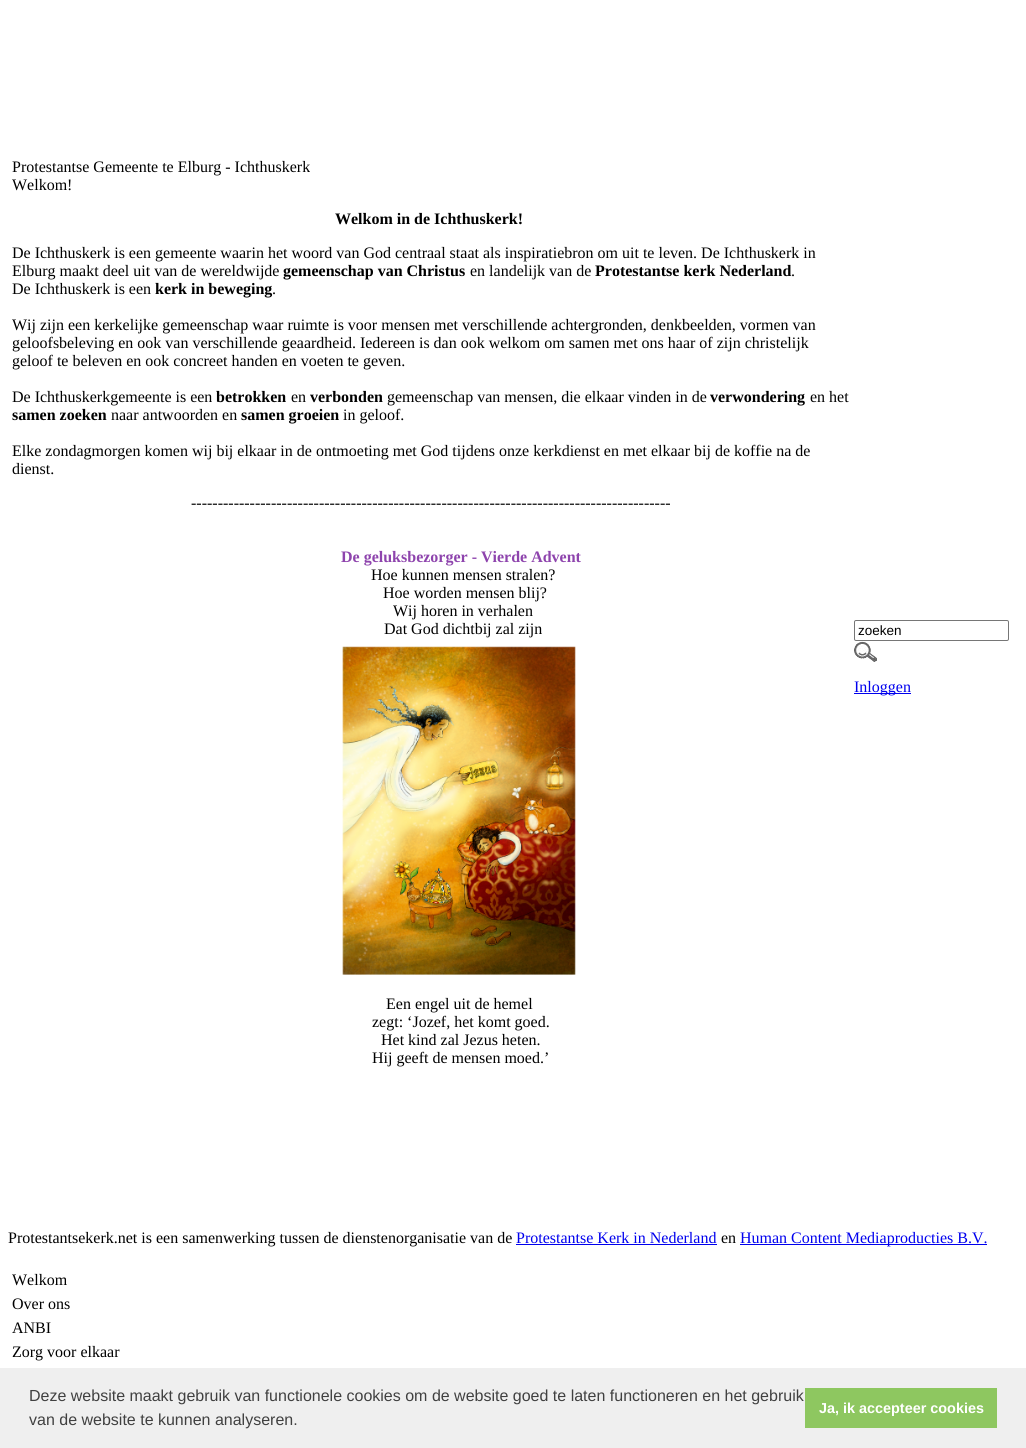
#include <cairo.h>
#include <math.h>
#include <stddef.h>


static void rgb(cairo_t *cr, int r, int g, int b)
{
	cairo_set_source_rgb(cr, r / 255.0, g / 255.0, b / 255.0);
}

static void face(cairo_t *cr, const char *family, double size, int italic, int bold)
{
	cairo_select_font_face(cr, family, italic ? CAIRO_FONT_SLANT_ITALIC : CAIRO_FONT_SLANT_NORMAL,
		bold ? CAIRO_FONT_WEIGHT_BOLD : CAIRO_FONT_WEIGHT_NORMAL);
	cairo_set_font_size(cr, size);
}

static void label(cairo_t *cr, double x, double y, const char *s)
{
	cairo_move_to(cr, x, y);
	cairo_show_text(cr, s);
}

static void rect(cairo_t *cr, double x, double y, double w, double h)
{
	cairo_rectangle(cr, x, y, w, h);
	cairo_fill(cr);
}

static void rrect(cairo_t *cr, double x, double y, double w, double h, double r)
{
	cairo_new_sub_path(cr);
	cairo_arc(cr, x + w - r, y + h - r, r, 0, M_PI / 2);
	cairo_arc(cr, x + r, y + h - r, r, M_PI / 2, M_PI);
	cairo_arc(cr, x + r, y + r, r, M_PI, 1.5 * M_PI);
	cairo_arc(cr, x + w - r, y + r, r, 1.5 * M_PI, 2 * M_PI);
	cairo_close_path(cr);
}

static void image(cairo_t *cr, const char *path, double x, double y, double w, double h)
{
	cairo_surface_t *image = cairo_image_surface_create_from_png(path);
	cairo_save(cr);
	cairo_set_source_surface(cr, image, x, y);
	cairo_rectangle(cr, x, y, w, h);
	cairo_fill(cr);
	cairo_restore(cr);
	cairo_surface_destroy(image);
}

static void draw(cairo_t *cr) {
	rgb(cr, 255, 255, 255);
	cairo_paint(cr);
	face(cr, "Liberation Serif", 16, 0, 0);
	rgb(cr, 0, 0, 0);
	label(cr, 12, 172, "Protestantse Gemeente te Elburg - Ichthuskerk");
	label(cr, 12, 190, "Welkom!");
	face(cr, "Liberation Serif", 16, 0, 1);
	label(cr, 335, 224, "Welkom in de Ichthuskerk!");
	face(cr, "Liberation Serif", 16, 0, 0);
	label(cr, 12, 258, "De Ichthuskerk is een gemeente waarin het woord van God centraal staat als inspiratiebron om uit te leven. De Ichthuskerk in");
	label(cr, 12, 276, "Elburg maakt deel uit van de wereldwijde");
	face(cr, "Liberation Serif", 16, 0, 1);
	label(cr, 283, 276, "gemeenschap van Christus");
	face(cr, "Liberation Serif", 16, 0, 0);
	label(cr, 470, 276, "en landelijk van de");
	face(cr, "Liberation Serif", 16, 0, 1);
	label(cr, 595, 276, "Protestantse kerk Nederland");
	face(cr, "Liberation Serif", 16, 0, 0);
	label(cr, 791, 276, ".");
	label(cr, 12, 294, "De Ichthuskerk is een");
	face(cr, "Liberation Serif", 16, 0, 1);
	label(cr, 155, 294, "kerk in beweging");
	face(cr, "Liberation Serif", 16, 0, 0);
	label(cr, 272, 294, ".");
	label(cr, 12, 330, "Wij zijn een kerkelijke gemeenschap waar ruimte is voor mensen met verschillende achtergronden, denkbeelden, vormen van");
	label(cr, 12, 348, "geloofsbeleving en ook van verschillende geaardheid. Iedereen is dan ook welkom om samen met ons haar of zijn christelijk");
	label(cr, 12, 366, "geloof te beleven en ook concreet handen en voeten te geven.");
	label(cr, 12, 402, "De Ichthuskerkgemeente is een");
	face(cr, "Liberation Serif", 16, 0, 1);
	label(cr, 216, 402, "betrokken");
	face(cr, "Liberation Serif", 16, 0, 0);
	label(cr, 291, 402, "en");
	face(cr, "Liberation Serif", 16, 0, 1);
	label(cr, 310, 402, "verbonden");
	face(cr, "Liberation Serif", 16, 0, 0);
	label(cr, 387, 402, "gemeenschap van mensen, die elkaar vinden in de");
	face(cr, "Liberation Serif", 16, 0, 1);
	label(cr, 710, 402, "verwondering");
	face(cr, "Liberation Serif", 16, 0, 0);
	label(cr, 810, 402, "en het");
	face(cr, "Liberation Serif", 16, 0, 1);
	label(cr, 12, 420, "samen zoeken");
	face(cr, "Liberation Serif", 16, 0, 0);
	label(cr, 111, 420, "naar antwoorden en");
	face(cr, "Liberation Serif", 16, 0, 1);
	label(cr, 241, 420, "samen groeien");
	face(cr, "Liberation Serif", 16, 0, 0);
	label(cr, 343, 420, "in geloof.");
	label(cr, 12, 456, "Elke zondagmorgen komen wij bij elkaar in de ontmoeting met God tijdens onze kerkdienst en met elkaar bij de koffie na de");
	label(cr, 12, 474, "dienst.");
	label(cr, 191, 508, "------------------------------------------------------------------------------------------");
	face(cr, "Liberation Serif", 16, 0, 1);
	rgb(cr, 142, 68, 173);
	label(cr, 341, 562, "De geluksbezorger - Vierde Advent");
	face(cr, "Liberation Serif", 16, 0, 0);
	rgb(cr, 0, 0, 0);
	label(cr, 371, 580, "Hoe kunnen mensen stralen?");
	label(cr, 383, 598, "Hoe worden mensen blij?");
	label(cr, 393, 616, "Wij horen in verhalen");
	label(cr, 384, 634, "Dat God dichtbij zal zijn");
	image(cr, "image0.png", 342, 646, 234, 329);
	label(cr, 386, 1009, "Een engel uit de hemel");
	label(cr, 372, 1027, "zegt: ‘Jozef, het komt goed.");
	label(cr, 381, 1045, "Het kind zal Jezus heten.");
	label(cr, 372, 1063, "Hij geeft de mensen moed.’");
	rrect(cr, 854.5, 620.5, 154, 20, 1.5);
	rgb(cr, 118, 118, 118);
	cairo_set_line_width(cr, 1);
	cairo_stroke(cr);
	face(cr, "Liberation Sans", 13.5, 0, 0);
	rgb(cr, 0, 0, 0);
	label(cr, 858, 635, "zoeken");
	image(cr, "image1.png", 854, 641, 23, 21);
	rgb(cr, 0, 0, 238);
	rect(cr, 854, 693, 57, 1);
	face(cr, "Liberation Serif", 16, 0, 0);
	label(cr, 854, 692, "Inloggen");
	rgb(cr, 0, 0, 0);
	label(cr, 8, 1243, "Protestantsekerk.net is een samenwerking tussen de dienstenorganisatie van de");
	rgb(cr, 0, 0, 238);
	label(cr, 516, 1243, "Protestantse Kerk in Nederland");
	rect(cr, 516, 1244, 201, 1);
	rgb(cr, 0, 0, 0);
	label(cr, 721, 1243, "en");
	rgb(cr, 0, 0, 238);
	rect(cr, 740, 1244, 247, 1);
	label(cr, 740, 1243, "Human Content Mediaproducties B.V.");
	rgb(cr, 0, 0, 0);
	label(cr, 12, 1285, "Welkom");
	label(cr, 12, 1309, "Over ons");
	label(cr, 12, 1333, "ANBI");
	label(cr, 12, 1357, "Zorg voor elkaar");
	rgb(cr, 239, 239, 239);
	rect(cr, 0, 1368, 1026, 80);
	face(cr, "Liberation Sans", 16, 0, 0);
	rgb(cr, 64, 64, 64);
	label(cr, 29, 1401, "Deze website maakt gebruik van functionele cookies om de website goed te laten functioneren en het gebruik");
	label(cr, 29, 1425, "van de website te kunnen analyseren.");
	rgb(cr, 142, 199, 96);
	rect(cr, 805, 1388, 192, 40);
	face(cr, "Liberation Sans", 14.4, 0, 1);
	rgb(cr, 255, 255, 255);
	label(cr, 819, 1413, "Ja, ik accepteer cookies");
}

int main(void) {
	cairo_surface_t *surface = cairo_image_surface_create(CAIRO_FORMAT_RGB24, 1026, 1448);
	cairo_t *cr = cairo_create(surface);
	cairo_font_options_t *options = cairo_font_options_create();
	cairo_font_options_set_hint_metrics(options, CAIRO_HINT_METRICS_OFF);
	cairo_font_options_set_hint_style(options, CAIRO_HINT_STYLE_NONE);
	cairo_set_font_options(cr, options);
	cairo_set_miter_limit(cr, 4);
	draw(cr);
	cairo_surface_write_to_png(surface, "render.png");
	cairo_font_options_destroy(options);
	cairo_destroy(cr);
	cairo_surface_destroy(surface);
	return 0;
}
